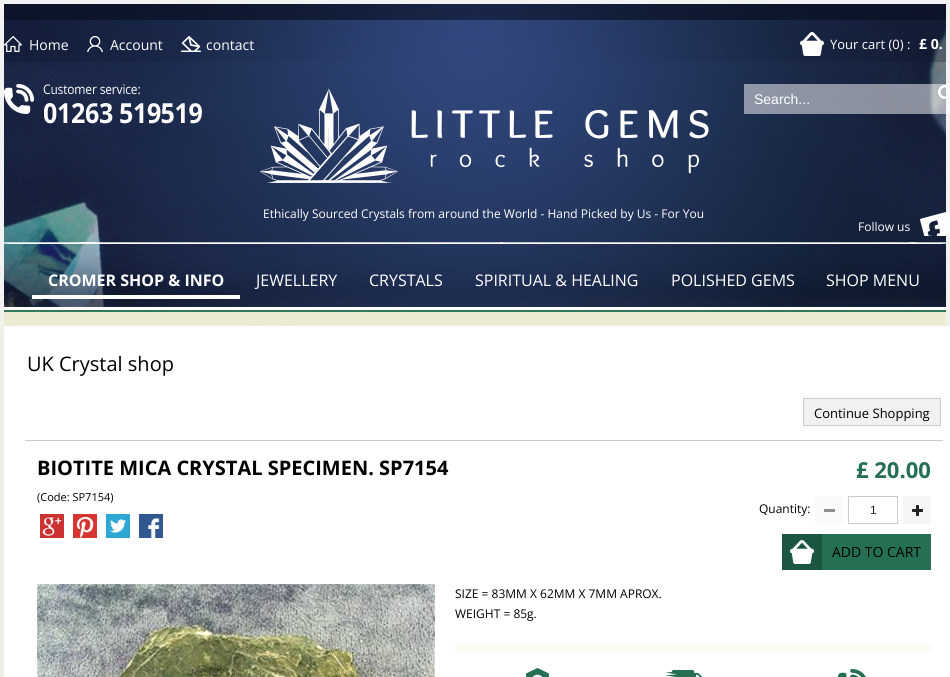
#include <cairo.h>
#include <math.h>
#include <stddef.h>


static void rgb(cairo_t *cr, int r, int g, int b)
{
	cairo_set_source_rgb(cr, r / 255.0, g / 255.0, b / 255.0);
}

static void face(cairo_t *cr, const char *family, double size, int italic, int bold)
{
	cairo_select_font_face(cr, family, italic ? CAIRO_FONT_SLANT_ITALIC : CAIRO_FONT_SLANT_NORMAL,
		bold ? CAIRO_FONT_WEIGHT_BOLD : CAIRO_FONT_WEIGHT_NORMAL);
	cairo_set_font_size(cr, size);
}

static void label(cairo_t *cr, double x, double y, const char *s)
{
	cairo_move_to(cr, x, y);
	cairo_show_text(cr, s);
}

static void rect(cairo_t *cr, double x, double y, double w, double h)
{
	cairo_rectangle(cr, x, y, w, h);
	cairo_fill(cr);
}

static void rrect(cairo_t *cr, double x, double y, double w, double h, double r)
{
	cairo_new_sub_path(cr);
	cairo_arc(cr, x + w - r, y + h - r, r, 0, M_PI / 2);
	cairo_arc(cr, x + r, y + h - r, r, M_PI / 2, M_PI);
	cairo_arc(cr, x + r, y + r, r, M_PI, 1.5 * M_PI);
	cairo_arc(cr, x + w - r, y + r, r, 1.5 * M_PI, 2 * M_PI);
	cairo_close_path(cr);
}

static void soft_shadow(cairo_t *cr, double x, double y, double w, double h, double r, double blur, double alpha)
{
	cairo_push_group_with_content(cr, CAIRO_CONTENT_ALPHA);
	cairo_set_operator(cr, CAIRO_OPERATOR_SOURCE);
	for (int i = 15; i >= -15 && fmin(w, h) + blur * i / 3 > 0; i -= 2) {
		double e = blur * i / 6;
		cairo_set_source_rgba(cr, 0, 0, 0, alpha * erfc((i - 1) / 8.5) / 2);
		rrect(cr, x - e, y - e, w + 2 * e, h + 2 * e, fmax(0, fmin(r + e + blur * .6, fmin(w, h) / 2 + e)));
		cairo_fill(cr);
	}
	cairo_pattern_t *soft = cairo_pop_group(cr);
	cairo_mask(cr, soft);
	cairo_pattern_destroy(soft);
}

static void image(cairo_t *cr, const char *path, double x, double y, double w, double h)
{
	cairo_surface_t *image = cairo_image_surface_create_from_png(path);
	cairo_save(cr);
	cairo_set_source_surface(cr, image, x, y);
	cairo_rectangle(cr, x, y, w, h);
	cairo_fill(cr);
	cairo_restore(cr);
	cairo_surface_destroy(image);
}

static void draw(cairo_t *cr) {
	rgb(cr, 255, 255, 255);
	cairo_paint(cr);
	image(cr, "image0.png", 4, 4, 942, 322);
	cairo_rectangle(cr, 2, 2, 946, 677);
	rgb(cr, 242, 242, 242);
	cairo_set_line_width(cr, 4);
	cairo_stroke(cr);
	image(cr, "image1.png", 4, 36, 18, 16);
	face(cr, "Open Sans", 14, 0, 0);
	rgb(cr, 255, 255, 255);
	label(cr, 29, 50, "Home");
	image(cr, "image2.png", 87, 36, 16, 16);
	label(cr, 110, 50, "Account");
	image(cr, "image3.png", 181, 36, 20, 16);
	label(cr, 206, 50, "contact");
	image(cr, "image4.png", 800, 32, 24, 24);
	face(cr, "Open Sans", 13, 0, 0);
	label(cr, 830, 49, "Your cart (0) :");
	face(cr, "Open Sans", 14, 0, 1);
	label(cr, 919, 49, "£ 0.");
	image(cr, "image5.png", 4, 84, 198, 40);
	image(cr, "image6.png", 260, 88, 449, 95);
	face(cr, "Open Sans", 12, 0, 0);
	label(cr, 263, 218, "Ethically Sourced Crystals from around the World - Hand Picked by Us - For You");
	cairo_set_source_rgba(cr, 1, 1, 1, 0.5);
	rect(cr, 744, 84, 206, 30);
	face(cr, "Liberation Sans", 14, 0, 0);
	rgb(cr, 255, 255, 255);
	label(cr, 754, 104, "Search...");
	image(cr, "image7.png", 938, 84, 12, 15);
	face(cr, "Open Sans", 12, 0, 0);
	label(cr, 858, 231, "Follow us");
	image(cr, "image8.png", 920, 211, 30, 25);
	rgb(cr, 236, 234, 210);
	soft_shadow(cr, 4, 336, 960, 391, 0, 16.5, 1);
	rgb(cr, 255, 255, 255);
	rect(cr, 32, 295, 208, 4);
	face(cr, "Open Sans", 16, 0, 1);
	label(cr, 48, 286, "CROMER SHOP & INFO");
	face(cr, "Open Sans", 16, 0, 0);
	label(cr, 256, 286, "JEWELLERY");
	label(cr, 369, 286, "CRYSTALS");
	label(cr, 475, 286, "SPIRITUAL & HEALING");
	label(cr, 671, 286, "POLISHED GEMS");
	label(cr, 826, 286, "SHOP MENU");
	rect(cr, 4, 326, 946, 351);
	face(cr, "Open Sans", 20, 0, 0);
	rgb(cr, 0, 0, 0);
	label(cr, 27, 371, "UK Crystal shop");
	rgb(cr, 241, 241, 241);
	cairo_rectangle(cr, 803.5, 398.5, 137, 27);
	cairo_fill_preserve(cr);
	rgb(cr, 204, 204, 204);
	cairo_set_line_width(cr, 1);
	cairo_stroke(cr);
	face(cr, "Open Sans", 13, 0, 0);
	rgb(cr, 0, 0, 0);
	label(cr, 814, 418, "Continue Shopping");
	rgb(cr, 204, 204, 204);
	rect(cr, 25, 440, 918, 1);
	face(cr, "Open Sans", 20, 0, 1);
	rgb(cr, 0, 0, 0);
	label(cr, 37, 475, "BIOTITE MICA CRYSTAL SPECIMEN. SP7154");
	face(cr, "Open Sans", 11, 0, 0);
	label(cr, 37, 501, "(Code: SP7154)");
	image(cr, "image9.png", 40, 514, 24, 24);
	image(cr, "image10.png", 73, 514, 24, 24);
	image(cr, "image11.png", 106, 514, 24, 24);
	image(cr, "image12.png", 139, 514, 24, 24);
	face(cr, "Open Sans", 22, 0, 1);
	rgb(cr, 37, 111, 83);
	label(cr, 856, 478, "£ 20.00");
	face(cr, "Open Sans", 12, 0, 0);
	rgb(cr, 0, 0, 0);
	label(cr, 759, 513, "Quantity:");
	rgb(cr, 250, 250, 250);
	rect(cr, 815, 496, 28, 28);
	rgb(cr, 142, 142, 142);
	rect(cr, 824, 509, 11, 3);
	cairo_rectangle(cr, 848.5, 496.5, 49, 27);
	rgb(cr, 204, 204, 204);
	cairo_stroke(cr);
	face(cr, "Liberation Sans", 12, 0, 0);
	rgb(cr, 33, 33, 33);
	label(cr, 870, 514, "1");
	rgb(cr, 245, 245, 245);
	rect(cr, 903, 496, 28, 28);
	image(cr, "image13.png", 912, 505, 11, 11);
	rgb(cr, 37, 111, 83);
	rect(cr, 822, 534, 109, 36);
	image(cr, "image14.png", 782, 534, 40, 36);
	face(cr, "Open Sans", 14, 0, 0);
	rgb(cr, 0, 0, 0);
	label(cr, 832, 557, "ADD TO CART");
	image(cr, "image15.png", 37, 584, 398, 93);
	face(cr, "Open Sans", 12, 0, 0);
	label(cr, 455, 598, "SIZE = 83MM X 62MM X 7MM APROX.");
	label(cr, 455, 618, "WEIGHT = 85g.");
	rgb(cr, 251, 251, 244);
	rect(cr, 455, 644, 476, 8);
	image(cr, "image16.png", 526, 668, 23, 9);
	image(cr, "image17.png", 665, 670, 38, 7);
	image(cr, "image18.png", 838, 669, 28, 8);
}

int main(void) {
	cairo_surface_t *surface = cairo_image_surface_create(CAIRO_FORMAT_RGB24, 950, 677);
	cairo_t *cr = cairo_create(surface);
	cairo_font_options_t *options = cairo_font_options_create();
	cairo_font_options_set_hint_metrics(options, CAIRO_HINT_METRICS_OFF);
	cairo_font_options_set_hint_style(options, CAIRO_HINT_STYLE_NONE);
	cairo_set_font_options(cr, options);
	cairo_set_miter_limit(cr, 4);
	draw(cr);
	cairo_surface_write_to_png(surface, "render.png");
	cairo_font_options_destroy(options);
	cairo_destroy(cr);
	cairo_surface_destroy(surface);
	return 0;
}
